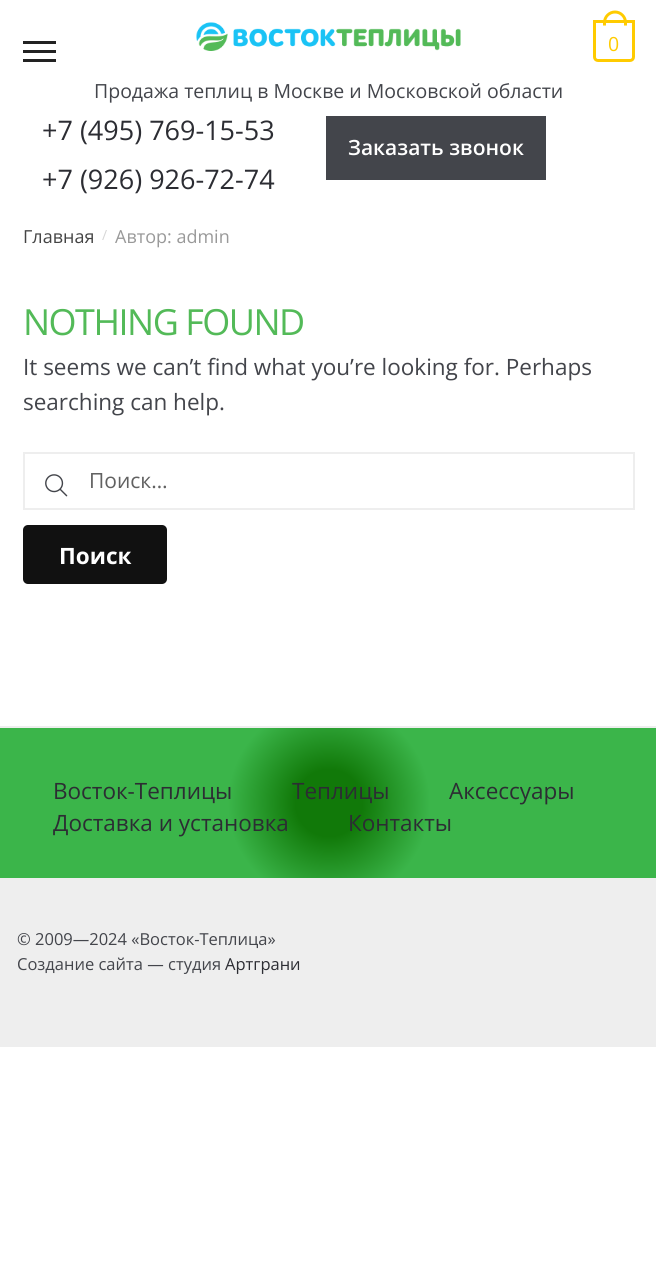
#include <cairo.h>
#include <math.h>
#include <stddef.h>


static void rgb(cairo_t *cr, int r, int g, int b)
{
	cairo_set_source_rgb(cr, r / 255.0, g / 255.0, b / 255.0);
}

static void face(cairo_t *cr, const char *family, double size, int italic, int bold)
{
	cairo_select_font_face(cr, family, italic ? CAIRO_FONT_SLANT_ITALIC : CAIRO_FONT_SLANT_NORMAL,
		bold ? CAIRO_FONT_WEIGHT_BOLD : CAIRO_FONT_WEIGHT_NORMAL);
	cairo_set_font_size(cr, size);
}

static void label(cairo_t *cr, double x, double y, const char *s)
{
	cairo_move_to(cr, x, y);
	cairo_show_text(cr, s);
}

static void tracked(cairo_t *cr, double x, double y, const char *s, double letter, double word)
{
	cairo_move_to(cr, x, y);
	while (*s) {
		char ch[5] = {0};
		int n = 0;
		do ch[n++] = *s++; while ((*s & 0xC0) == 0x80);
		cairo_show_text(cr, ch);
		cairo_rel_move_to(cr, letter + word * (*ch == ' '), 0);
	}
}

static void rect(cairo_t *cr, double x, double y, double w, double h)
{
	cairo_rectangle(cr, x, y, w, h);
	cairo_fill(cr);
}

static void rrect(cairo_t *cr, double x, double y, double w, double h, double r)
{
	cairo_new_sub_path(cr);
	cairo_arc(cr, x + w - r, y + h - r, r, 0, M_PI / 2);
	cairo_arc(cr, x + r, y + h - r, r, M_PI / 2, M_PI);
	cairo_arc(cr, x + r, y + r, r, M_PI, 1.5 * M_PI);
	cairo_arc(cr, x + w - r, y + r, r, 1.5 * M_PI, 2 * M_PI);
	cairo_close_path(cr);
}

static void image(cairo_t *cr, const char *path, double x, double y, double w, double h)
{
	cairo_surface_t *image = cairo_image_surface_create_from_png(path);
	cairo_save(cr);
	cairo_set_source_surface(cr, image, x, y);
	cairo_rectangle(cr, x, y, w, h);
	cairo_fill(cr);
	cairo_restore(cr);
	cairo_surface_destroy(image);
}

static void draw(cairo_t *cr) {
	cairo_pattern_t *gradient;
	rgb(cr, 255, 255, 255);
	cairo_paint(cr);
	cairo_new_path(cr);
	cairo_move_to(cr, 594.5, 21.5);
	cairo_line_to(cr, 633.5, 21.5);
	cairo_line_to(cr, 633.5, 57);
	cairo_curve_to(cr, 633.5, 59, 632, 60.5, 630, 60.5);
	cairo_line_to(cr, 598, 60.5);
	cairo_curve_to(cr, 596, 60.5, 594.5, 59, 594.5, 57);
	cairo_close_path(cr);
	rgb(cr, 255, 203, 0);
	cairo_set_line_width(cr, 3);
	cairo_stroke(cr);
	cairo_set_fill_rule(cr, CAIRO_FILL_RULE_EVEN_ODD);
	cairo_new_path(cr);
	cairo_move_to(cr, 615, 10.5);
	cairo_curve_to(cr, 621.5, 10.5, 627, 16, 627, 22.5);
	cairo_line_to(cr, 627, 25.5);
	cairo_line_to(cr, 603, 25.5);
	cairo_line_to(cr, 603, 22.5);
	cairo_curve_to(cr, 603, 16, 608.5, 10.5, 615, 10.5);
	cairo_close_path(cr);
	cairo_move_to(cr, 615, 13.5);
	cairo_curve_to(cr, 620, 13.5, 624, 17.5, 624, 22.5);
	cairo_line_to(cr, 624, 25.5);
	cairo_line_to(cr, 606, 25.5);
	cairo_line_to(cr, 606, 22.5);
	cairo_curve_to(cr, 606, 17.5, 610, 13.5, 615, 13.5);
	cairo_close_path(cr);
	cairo_fill(cr);
	face(cr, "Open Sans", 19.5, 0, 0);
	tracked(cr, 608, 51, "0", -1, 0);
	rgb(cr, 34, 34, 34);
	rect(cr, 23, 41, 33, 3);
	rect(cr, 23, 50, 33, 3);
	rect(cr, 23, 59, 33, 3);
	image(cr, "image0.png", 196, 22, 265, 29);
	rgb(cr, 67, 69, 75);
	label(cr, 94, 98, "Продажа теплиц в Москве и Московской области");
	face(cr, "Open Sans", 27, 0, 0);
	rgb(cr, 44, 45, 51);
	label(cr, 42, 140, "+7 (495) 769-15-53");
	label(cr, 42, 189, "+7 (926) 926-72-74");
	rgb(cr, 67, 69, 75);
	rect(cr, 326, 116, 220, 64);
	face(cr, "Open Sans SemiBold", 21, 0, 0);
	rgb(cr, 255, 255, 255);
	label(cr, 348, 155, "Заказать звонок");
	face(cr, "Open Sans", 18, 0, 0);
	rgb(cr, 68, 68, 68);
	label(cr, 23, 243, "Главная");
	face(cr, "Open Sans", 14, 0, 0);
	rgb(cr, 214, 214, 214);
	label(cr, 102, 240, "/");
	face(cr, "Open Sans", 18, 0, 0);
	rgb(cr, 153, 153, 153);
	label(cr, 115, 243, "Автор: admin");
	face(cr, "Open Sans", 36, 0, 0);
	rgb(cr, 83, 186, 88);
	tracked(cr, 23, 335, "NOTHING FOUND", -1.5, 0);
	face(cr, "Open Sans", 22.5, 0, 0);
	rgb(cr, 67, 69, 75);
	label(cr, 23, 375, "It seems we can’t find what you’re looking for. Perhaps");
	label(cr, 23, 410, "searching can help.");
	cairo_rectangle(cr, 24, 453, 610, 56);
	rgb(cr, 238, 238, 238);
	cairo_set_line_width(cr, 2);
	cairo_stroke(cr);
	image(cr, "image1.png", 45, 474, 23, 23);
	face(cr, "Open Sans", 21, 0, 0);
	rgb(cr, 97, 97, 97);
	label(cr, 89, 488, "Поиск…");
	rgb(cr, 17, 17, 17);
	rrect(cr, 23, 525, 144, 59, 5);
	cairo_fill(cr);
	face(cr, "Open Sans", 22.5, 0, 1);
	rgb(cr, 255, 255, 255);
	label(cr, 59, 564, "Поиск");
	gradient = cairo_pattern_create_radial(329, 803, 0, 329, 803, 337);
	cairo_pattern_add_color_stop_rgba(gradient, 0.1, 0.067, 0.475, 0.035, 1);
	cairo_pattern_add_color_stop_rgba(gradient, 0.3, 0.231, 0.71, 0.29, 1);
	cairo_set_source(cr, gradient);
	cairo_pattern_destroy(gradient);
	rect(cr, 0, 728, 656, 150);
	rgb(cr, 238, 238, 238);
	rect(cr, 0, 726, 656, 2);
	face(cr, "Open Sans", 22.5, 0, 0);
	rgb(cr, 44, 45, 51);
	label(cr, 53, 799, "Восток-Теплицы");
	label(cr, 292, 799, "Теплицы");
	label(cr, 449, 799, "Аксессуары");
	label(cr, 53, 831, "Доставка и установка");
	label(cr, 348, 831, "Контакты");
	rgb(cr, 238, 238, 238);
	rect(cr, 0, 878, 656, 169);
	face(cr, "Open Sans", 16.5, 0, 0);
	rgb(cr, 67, 69, 75);
	label(cr, 17, 945, "© 2009—2024 «Восток-Теплица»");
	label(cr, 17, 970, "Создание сайта — студия");
	rgb(cr, 44, 45, 51);
	label(cr, 225, 970, "Артграни");
}

int main(void) {
	cairo_surface_t *surface = cairo_image_surface_create(CAIRO_FORMAT_RGB24, 656, 1268);
	cairo_t *cr = cairo_create(surface);
	cairo_font_options_t *options = cairo_font_options_create();
	cairo_font_options_set_hint_metrics(options, CAIRO_HINT_METRICS_OFF);
	cairo_font_options_set_hint_style(options, CAIRO_HINT_STYLE_NONE);
	cairo_set_font_options(cr, options);
	cairo_set_miter_limit(cr, 4);
	draw(cr);
	cairo_surface_write_to_png(surface, "render.png");
	cairo_font_options_destroy(options);
	cairo_destroy(cr);
	cairo_surface_destroy(surface);
	return 0;
}
